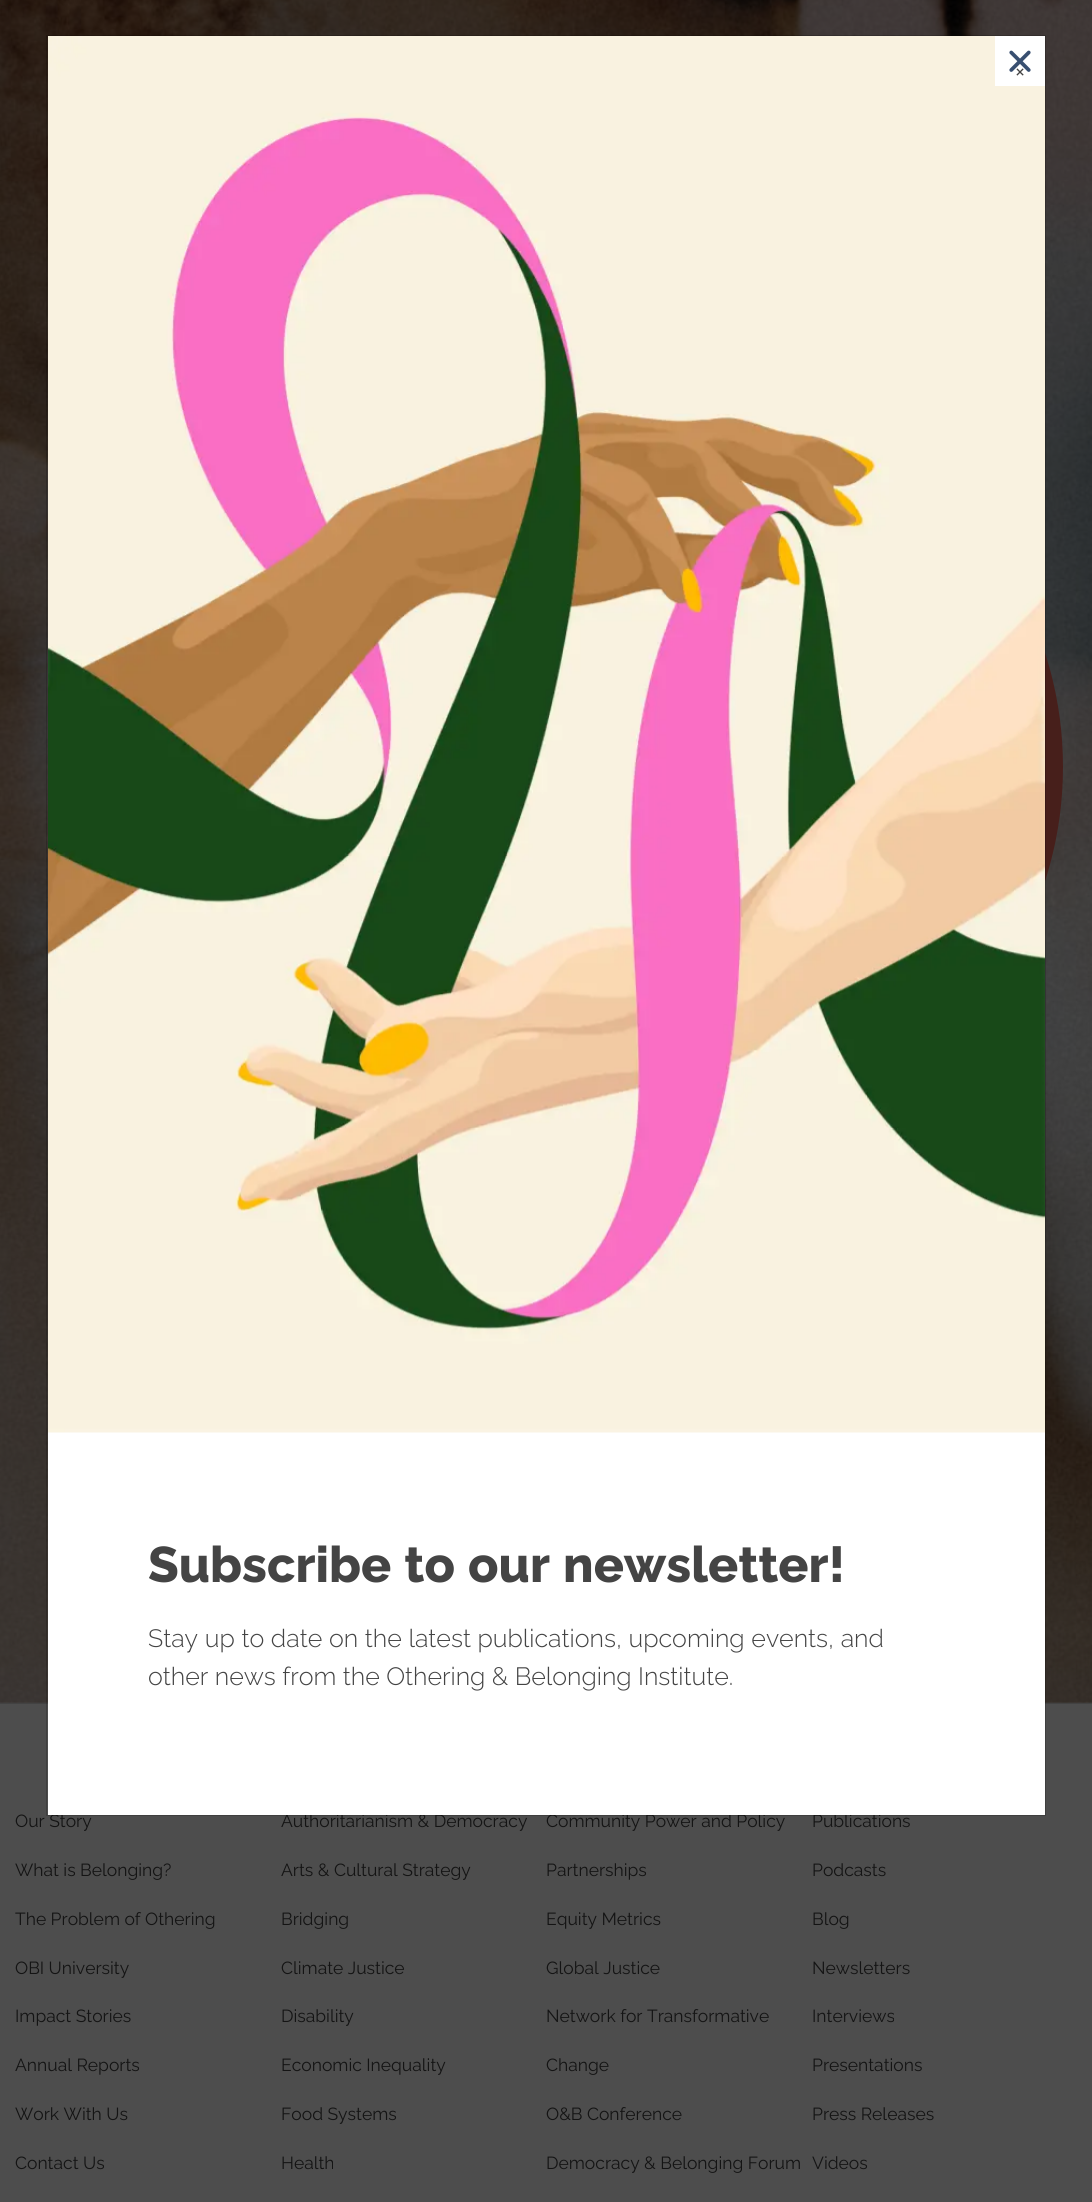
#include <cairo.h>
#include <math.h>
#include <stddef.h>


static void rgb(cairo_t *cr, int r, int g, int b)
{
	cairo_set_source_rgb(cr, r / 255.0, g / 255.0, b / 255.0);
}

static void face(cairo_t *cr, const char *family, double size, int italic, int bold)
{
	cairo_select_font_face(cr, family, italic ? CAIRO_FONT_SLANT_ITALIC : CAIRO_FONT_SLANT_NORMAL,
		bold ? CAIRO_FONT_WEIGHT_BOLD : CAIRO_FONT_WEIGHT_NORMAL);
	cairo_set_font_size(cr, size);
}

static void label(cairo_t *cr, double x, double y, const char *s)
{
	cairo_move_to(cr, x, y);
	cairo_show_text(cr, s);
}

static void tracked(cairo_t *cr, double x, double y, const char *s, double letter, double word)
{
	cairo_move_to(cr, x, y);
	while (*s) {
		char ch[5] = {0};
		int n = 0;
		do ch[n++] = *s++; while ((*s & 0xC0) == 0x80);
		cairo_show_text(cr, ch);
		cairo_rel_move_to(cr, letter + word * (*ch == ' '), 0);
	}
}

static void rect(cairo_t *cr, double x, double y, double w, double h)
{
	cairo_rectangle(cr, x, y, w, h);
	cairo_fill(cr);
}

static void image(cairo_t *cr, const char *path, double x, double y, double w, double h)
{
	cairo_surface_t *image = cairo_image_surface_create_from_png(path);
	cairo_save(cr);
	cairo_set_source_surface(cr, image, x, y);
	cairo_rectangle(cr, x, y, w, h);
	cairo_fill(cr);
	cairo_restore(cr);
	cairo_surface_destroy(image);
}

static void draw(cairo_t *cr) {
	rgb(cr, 77, 77, 77);
	cairo_paint(cr);
	image(cr, "image2.png", 0, 0, 1092, 1703);
	rgb(cr, 66, 66, 66);
	rect(cr, 0, 1703, 1092, 1);
	face(cr, "Raleway", 17.5, 0, 0);
	rgb(cr, 20, 20, 20);
	label(cr, 15, 1827, "Our Story");
	label(cr, 281, 1827, "Authoritarianism & Democracy");
	label(cr, 546, 1827, "Community Power and Policy");
	label(cr, 812, 1827, "Publications");
	rgb(cr, 255, 255, 255);
	rect(cr, 48, 1432, 997, 383);
	rgb(cr, 71, 31, 27);
	cairo_new_path(cr);
	cairo_arc(cr, 691, 767, 372, 0, 2 * M_PI);
	cairo_fill(cr);
	cairo_rectangle(cr, 46.5, 35.5, 999, 1780);
	cairo_set_source_rgba(cr, 0, 0, 0, 0.18);
	cairo_set_line_width(cr, 1);
	cairo_stroke(cr);
	image(cr, "image1.png", 48, 36, 997, 1397);
	rgb(cr, 255, 255, 255);
	rect(cr, 995, 36, 50, 50);
	image(cr, "image0.png", 1009, 50, 22, 22);
	face(cr, "Raleway", 22, 0, 0);
	rgb(cr, 68, 68, 68);
	label(cr, 1015, 78, "×");
	face(cr, "Raleway ExtraBold", 50, 0, 0);
	tracked(cr, 148, 1582, "Subscribe to our newsletter!", 0, 1.5);
	face(cr, "Raleway Light", 25, 0, 0);
	tracked(cr, 148, 1647, "Stay up to date on the latest publications, upcoming events, and", 0, 0.25);
	label(cr, 148, 1685, "other news from the Othering & Belonging Institute.");
	face(cr, "Raleway", 17.5, 0, 0);
	rgb(cr, 20, 20, 20);
	label(cr, 15, 1876, "What is Belonging?");
	label(cr, 15, 1925, "The Problem of Othering");
	label(cr, 15, 1974, "OBI University");
	label(cr, 15, 2022, "Impact Stories");
	label(cr, 15, 2071, "Annual Reports");
	label(cr, 15, 2120, "Work With Us");
	label(cr, 15, 2169, "Contact Us");
	label(cr, 281, 1876, "Arts & Cultural Strategy");
	label(cr, 281, 1925, "Bridging");
	label(cr, 281, 1974, "Climate Justice");
	label(cr, 281, 2022, "Disability");
	label(cr, 281, 2071, "Economic Inequality");
	label(cr, 281, 2120, "Food Systems");
	label(cr, 281, 2169, "Health");
	label(cr, 546, 1876, "Partnerships");
	label(cr, 546, 1925, "Equity Metrics");
	label(cr, 546, 1974, "Global Justice");
	label(cr, 546, 2022, "Network for Transformative");
	label(cr, 546, 2071, "Change");
	label(cr, 546, 2120, "O&B Conference");
	label(cr, 546, 2169, "Democracy & Belonging Forum");
	label(cr, 812, 1876, "Podcasts");
	label(cr, 812, 1925, "Blog");
	label(cr, 812, 1974, "Newsletters");
	label(cr, 812, 2022, "Interviews");
	label(cr, 812, 2071, "Presentations");
	label(cr, 812, 2120, "Press Releases");
	label(cr, 812, 2169, "Videos");
}

int main(void) {
	cairo_surface_t *surface = cairo_image_surface_create(CAIRO_FORMAT_RGB24, 1092, 2202);
	cairo_t *cr = cairo_create(surface);
	cairo_font_options_t *options = cairo_font_options_create();
	cairo_font_options_set_hint_metrics(options, CAIRO_HINT_METRICS_OFF);
	cairo_font_options_set_hint_style(options, CAIRO_HINT_STYLE_NONE);
	cairo_set_font_options(cr, options);
	cairo_set_miter_limit(cr, 4);
	draw(cr);
	cairo_surface_write_to_png(surface, "render.png");
	cairo_font_options_destroy(options);
	cairo_destroy(cr);
	cairo_surface_destroy(surface);
	return 0;
}
